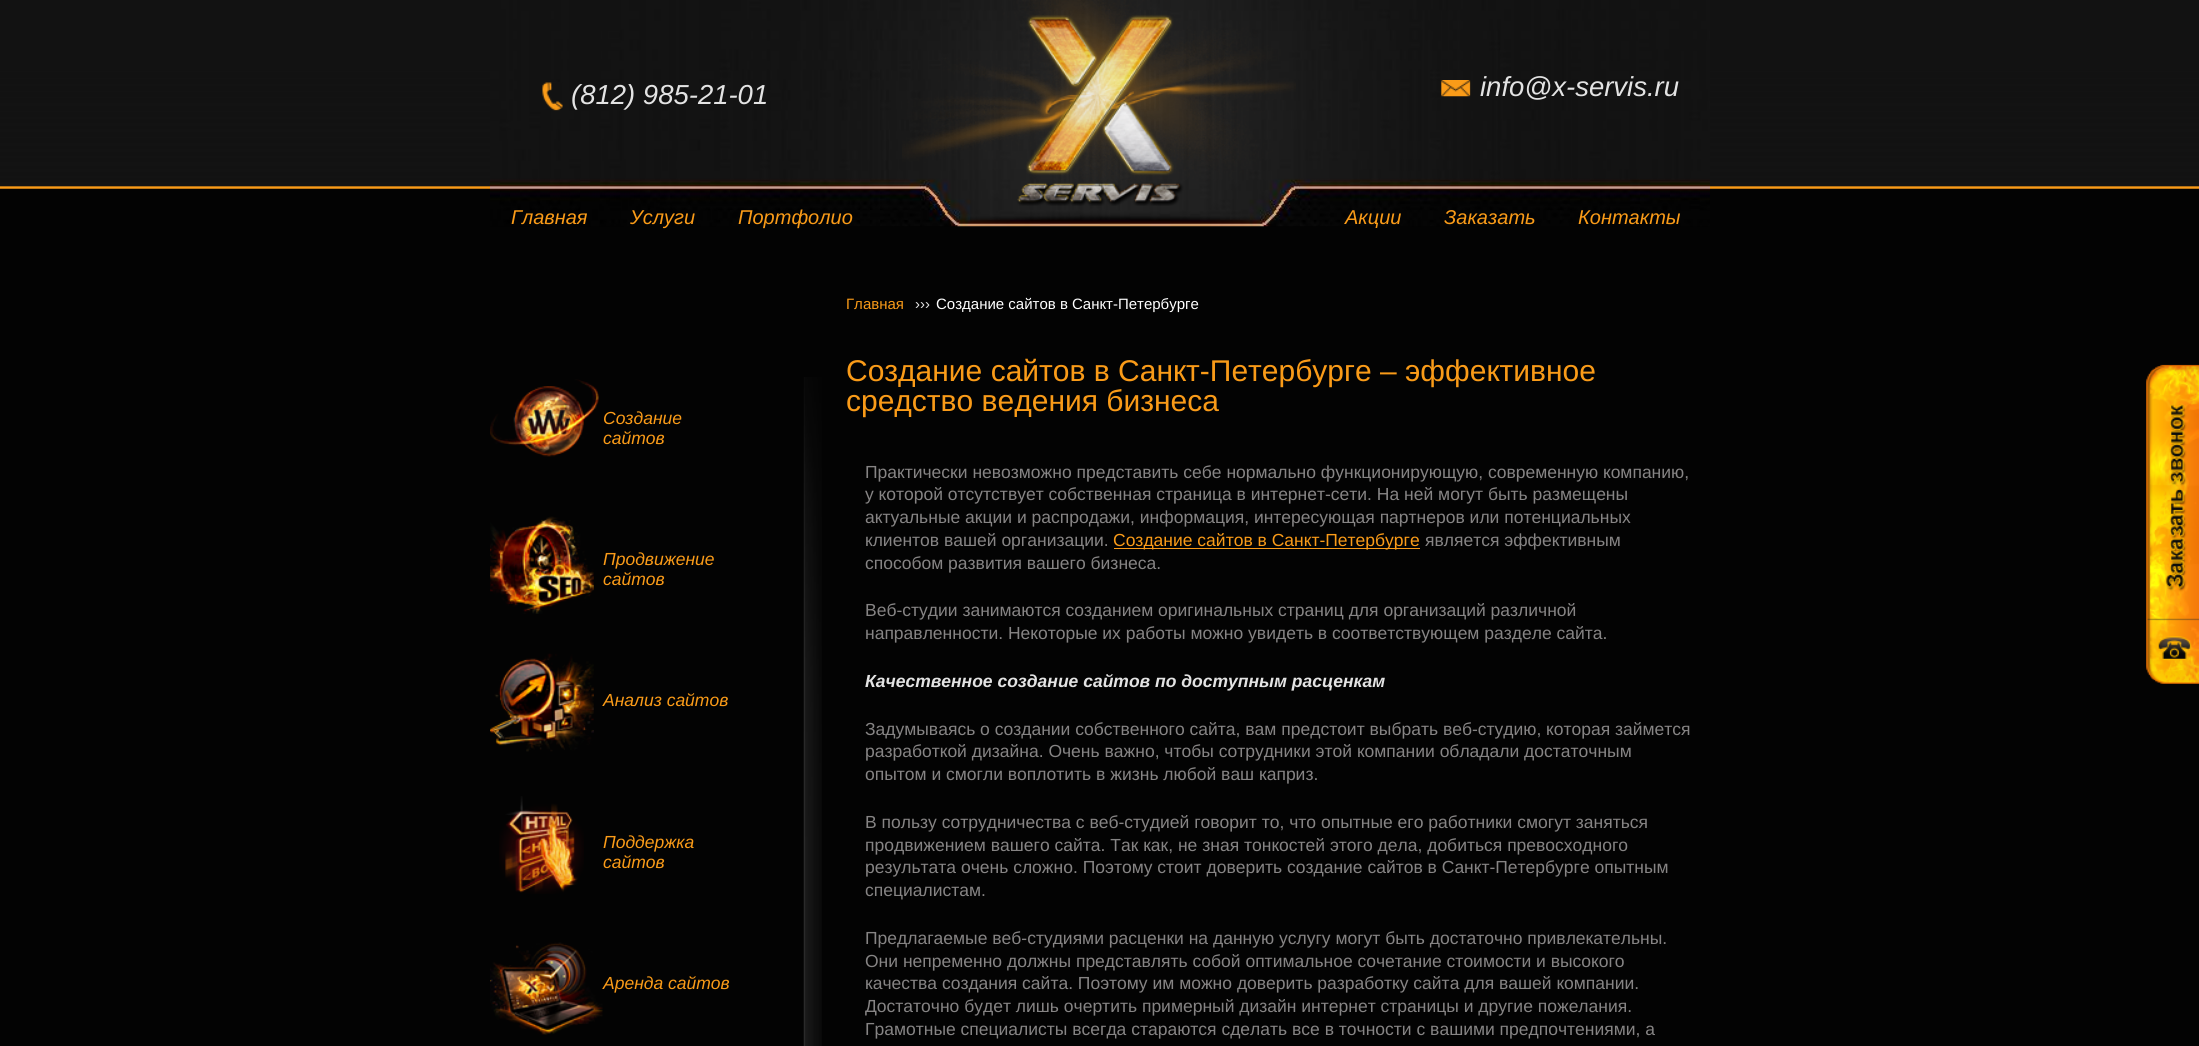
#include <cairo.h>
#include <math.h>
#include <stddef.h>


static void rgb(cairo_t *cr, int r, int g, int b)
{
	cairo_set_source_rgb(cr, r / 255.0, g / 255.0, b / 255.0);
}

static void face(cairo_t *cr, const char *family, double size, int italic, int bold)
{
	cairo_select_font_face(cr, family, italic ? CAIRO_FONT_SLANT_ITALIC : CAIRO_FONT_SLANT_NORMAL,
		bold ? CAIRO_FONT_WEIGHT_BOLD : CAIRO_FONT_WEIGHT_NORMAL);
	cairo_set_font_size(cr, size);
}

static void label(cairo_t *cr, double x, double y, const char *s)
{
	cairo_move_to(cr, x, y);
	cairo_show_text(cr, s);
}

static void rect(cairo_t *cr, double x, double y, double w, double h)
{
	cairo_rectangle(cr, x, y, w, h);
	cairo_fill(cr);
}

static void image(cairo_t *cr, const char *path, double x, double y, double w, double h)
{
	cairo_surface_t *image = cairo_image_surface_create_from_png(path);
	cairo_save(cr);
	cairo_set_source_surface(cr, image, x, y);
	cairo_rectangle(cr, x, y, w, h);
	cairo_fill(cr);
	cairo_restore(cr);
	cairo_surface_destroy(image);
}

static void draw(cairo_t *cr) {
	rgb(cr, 3, 3, 3);
	cairo_paint(cr);
	image(cr, "image0.png", 0, 0, 2199, 189);
	image(cr, "image1.png", 490, 0, 1220, 227);
	image(cr, "image2.png", 542, 82, 21, 29);
	face(cr, "Liberation Sans", 27.5, 1, 0);
	rgb(cr, 227, 227, 227);
	label(cr, 571, 104, "(812) 985-21-01");
	image(cr, "image3.png", 902, 0, 394, 206);
	image(cr, "image4.png", 1441, 80, 30, 17);
	label(cr, 1480, 96, "info@x-servis.ru");
	face(cr, "Liberation Sans", 20, 1, 0);
	rgb(cr, 250, 155, 24);
	label(cr, 511, 224, "Главная");
	label(cr, 630, 224, "Услуги");
	label(cr, 738, 224, "Портфолио");
	label(cr, 1345, 224, "Акции");
	label(cr, 1444, 224, "Заказать");
	label(cr, 1578, 224, "Контакты");
	image(cr, "image5.png", 803, 377, 19, 669);
	image(cr, "image6.png", 490, 379, 109, 78);
	face(cr, "Liberation Sans", 17.5, 1, 0);
	label(cr, 603, 424, "Создание");
	label(cr, 603, 444, "сайтов");
	image(cr, "image7.png", 490, 516, 104, 98);
	label(cr, 603, 565, "Продвижение");
	label(cr, 603, 585, "сайтов");
	image(cr, "image8.png", 490, 653, 104, 99);
	label(cr, 603, 706, "Анализ сайтов");
	image(cr, "image9.png", 499, 796, 85, 98);
	label(cr, 603, 848, "Поддержка");
	label(cr, 603, 868, "сайтов");
	image(cr, "image10.png", 490, 942, 113, 93);
	label(cr, 603, 989, "Аренда сайтов");
	face(cr, "Liberation Sans", 15, 0, 0);
	label(cr, 846, 309, "Главная");
	rgb(cr, 227, 227, 227);
	label(cr, 915, 309, "›››");
	rgb(cr, 255, 255, 255);
	label(cr, 936, 309, "Создание сайтов в Санкт-Петербурге");
	face(cr, "Liberation Sans", 30, 0, 0);
	rgb(cr, 250, 155, 24);
	label(cr, 846, 381, "Создание сайтов в Санкт-Петербурге – эффективное");
	label(cr, 846, 411, "средство ведения бизнеса");
	face(cr, "Liberation Sans", 17.5, 0, 0);
	rgb(cr, 134, 132, 132);
	label(cr, 865, 478, "Практически невозможно представить себе нормально функционирующую, современную компанию,");
	label(cr, 865, 500, "у которой отсутствует собственная страница в интернет-сети. На ней могут быть размещены");
	label(cr, 865, 523, "актуальные акции и распродажи, информация, интересующая партнеров или потенциальных");
	label(cr, 865, 546, "клиентов вашей организации.");
	rgb(cr, 250, 155, 24);
	rect(cr, 1114, 548, 306, 1);
	label(cr, 1113, 546, "Создание сайтов в Санкт-Петербурге");
	rgb(cr, 134, 132, 132);
	label(cr, 1425, 546, "является эффективным");
	label(cr, 865, 569, "способом развития вашего бизнеса.");
	label(cr, 865, 616, "Веб-студии занимаются созданием оригинальных страниц для организаций различной");
	label(cr, 865, 639, "направленности. Некоторые их работы можно увидеть в соответствующем разделе сайта.");
	face(cr, "Liberation Sans", 17.5, 1, 1);
	rgb(cr, 227, 227, 227);
	label(cr, 865, 687, "Качественное создание сайтов по доступным расценкам");
	face(cr, "Liberation Sans", 17.5, 0, 0);
	rgb(cr, 134, 132, 132);
	label(cr, 865, 735, "Задумываясь о создании собственного сайта, вам предстоит выбрать веб-студию, которая займется");
	label(cr, 865, 757, "разработкой дизайна. Очень важно, чтобы сотрудники этой компании обладали достаточным");
	label(cr, 865, 780, "опытом и смогли воплотить в жизнь любой ваш каприз.");
	label(cr, 865, 828, "В пользу сотрудничества с веб-студией говорит то, что опытные его работники смогут заняться");
	label(cr, 865, 851, "продвижением вашего сайта. Так как, не зная тонкостей этого дела, добиться превосходного");
	label(cr, 865, 873, "результата очень сложно. Поэтому стоит доверить создание сайтов в Санкт-Петербурге опытным");
	label(cr, 865, 896, "специалистам.");
	label(cr, 865, 944, "Предлагаемые веб-студиями расценки на данную услугу могут быть достаточно привлекательны.");
	label(cr, 865, 967, "Они непременно должны представлять собой оптимальное сочетание стоимости и высокого");
	label(cr, 865, 989, "качества создания сайта. Поэтому им можно доверить разработку сайта для вашей компании.");
	label(cr, 865, 1012, "Достаточно будет лишь очертить примерный дизайн интернет страницы и другие пожелания.");
	label(cr, 865, 1035, "Грамотные специалисты всегда стараются сделать все в точности с вашими предпочтениями, а");
	image(cr, "image11.png", 2146, 364, 53, 320);
}

int main(void) {
	cairo_surface_t *surface = cairo_image_surface_create(CAIRO_FORMAT_RGB24, 2199, 1046);
	cairo_t *cr = cairo_create(surface);
	cairo_font_options_t *options = cairo_font_options_create();
	cairo_font_options_set_hint_metrics(options, CAIRO_HINT_METRICS_OFF);
	cairo_font_options_set_hint_style(options, CAIRO_HINT_STYLE_NONE);
	cairo_set_font_options(cr, options);
	cairo_set_miter_limit(cr, 4);
	draw(cr);
	cairo_surface_write_to_png(surface, "render.png");
	cairo_font_options_destroy(options);
	cairo_destroy(cr);
	cairo_surface_destroy(surface);
	return 0;
}
